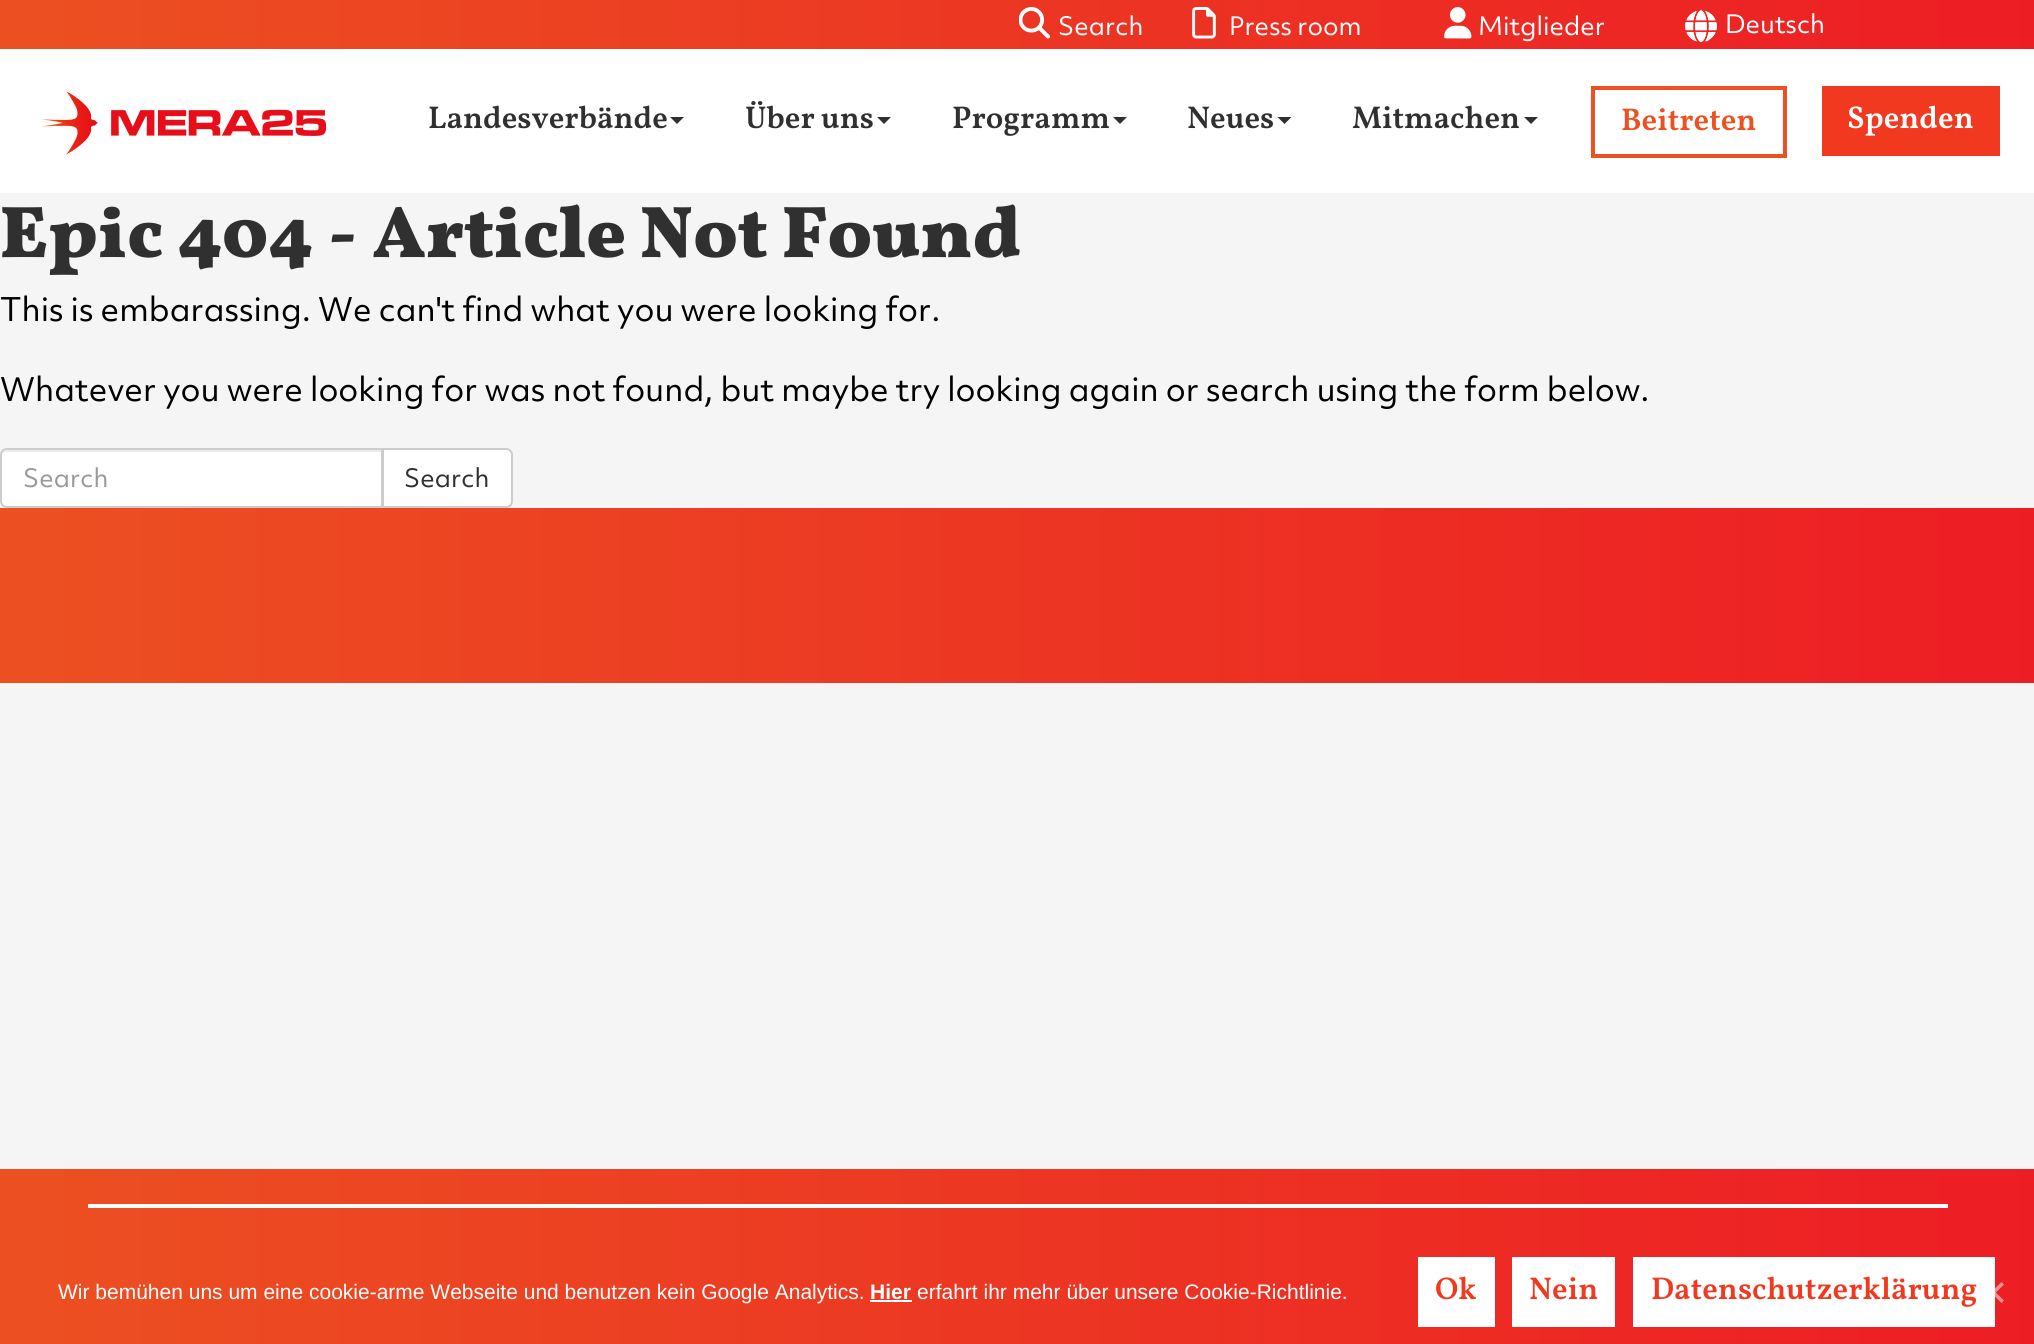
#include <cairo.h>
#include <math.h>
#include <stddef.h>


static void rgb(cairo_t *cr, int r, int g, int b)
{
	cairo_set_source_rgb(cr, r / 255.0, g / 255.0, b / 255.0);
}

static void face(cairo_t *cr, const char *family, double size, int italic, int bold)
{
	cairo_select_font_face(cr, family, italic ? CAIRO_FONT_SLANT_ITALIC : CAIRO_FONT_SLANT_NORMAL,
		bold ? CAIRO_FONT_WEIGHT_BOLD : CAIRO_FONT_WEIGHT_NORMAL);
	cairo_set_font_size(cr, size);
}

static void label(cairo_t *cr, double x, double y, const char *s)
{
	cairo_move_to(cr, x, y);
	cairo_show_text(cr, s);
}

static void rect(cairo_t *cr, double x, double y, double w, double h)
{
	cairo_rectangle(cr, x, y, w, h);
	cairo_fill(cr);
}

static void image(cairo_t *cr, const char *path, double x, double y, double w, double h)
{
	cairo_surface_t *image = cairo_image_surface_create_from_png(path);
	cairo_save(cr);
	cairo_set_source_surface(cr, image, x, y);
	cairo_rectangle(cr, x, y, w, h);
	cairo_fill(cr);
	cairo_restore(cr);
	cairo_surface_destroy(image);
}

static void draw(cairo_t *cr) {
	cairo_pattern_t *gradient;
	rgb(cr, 246, 245, 245);
	cairo_paint(cr);
	rgb(cr, 255, 255, 255);
	rect(cr, 0, 49, 2034, 144);
	gradient = cairo_pattern_create_linear(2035, 25, 0, 24);
	cairo_pattern_add_color_stop_rgba(gradient, 0, 0.929, 0.114, 0.141, 1);
	cairo_pattern_add_color_stop_rgba(gradient, 1, 0.925, 0.314, 0.133, 1);
	cairo_set_source(cr, gradient);
	cairo_pattern_destroy(gradient);
	rect(cr, 0, 0, 2034, 49);
	image(cr, "image0.png", 1019, 7, 31, 32);
	face(cr, "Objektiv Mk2", 24.5, 0, 0);
	rgb(cr, 255, 255, 255);
	label(cr, 1058, 35, "Search");
	image(cr, "image1.png", 1192, 7, 24, 32);
	label(cr, 1229, 35, "Press room");
	image(cr, "image2.png", 1444, 7, 28, 32);
	label(cr, 1478, 35, "Mitglieder");
	image(cr, "image3.png", 1685, 10, 32, 32);
	label(cr, 1725, 33, "Deutsch");
	face(cr, "Vollkorn SemiBold", 31.5, 0, 0);
	rgb(cr, 48, 48, 48);
	label(cr, 428, 128, "Landesverbände");
	cairo_new_path(cr);
	cairo_move_to(cr, 670, 117);
	cairo_line_to(cr, 684, 117);
	cairo_line_to(cr, 677, 124);
	cairo_close_path(cr);
	cairo_fill(cr);
	label(cr, 745, 128, "Über uns");
	cairo_new_path(cr);
	cairo_move_to(cr, 877, 117);
	cairo_line_to(cr, 891, 117);
	cairo_line_to(cr, 884, 124);
	cairo_close_path(cr);
	cairo_fill(cr);
	label(cr, 952, 128, "Programm");
	cairo_new_path(cr);
	cairo_move_to(cr, 1113, 117);
	cairo_line_to(cr, 1127, 117);
	cairo_line_to(cr, 1120, 124);
	cairo_close_path(cr);
	cairo_fill(cr);
	label(cr, 1187, 128, "Neues");
	cairo_new_path(cr);
	cairo_move_to(cr, 1277.5, 117);
	cairo_line_to(cr, 1291.5, 117);
	cairo_line_to(cr, 1284.5, 124);
	cairo_close_path(cr);
	cairo_fill(cr);
	label(cr, 1352, 128, "Mitmachen");
	cairo_new_path(cr);
	cairo_move_to(cr, 1524, 117);
	cairo_line_to(cr, 1538, 117);
	cairo_line_to(cr, 1531, 124);
	cairo_close_path(cr);
	cairo_fill(cr);
	image(cr, "image4.png", 42, 91, 285, 64);
	cairo_rectangle(cr, 1593, 88, 192, 68);
	rgb(cr, 236, 81, 34);
	cairo_set_line_width(cr, 4);
	cairo_stroke(cr);
	label(cr, 1621, 130, "Beitreten");
	rgb(cr, 240, 57, 31);
	rect(cr, 1822, 86, 178, 70);
	rgb(cr, 255, 255, 255);
	label(cr, 1847, 128, "Spenden");
	face(cr, "Vollkorn Black", 73.5, 0, 0);
	rgb(cr, 48, 48, 48);
	label(cr, 0, 257, "Epic 404 - Article Not Found");
	face(cr, "Objektiv Mk2", 31.5, 0, 0);
	rgb(cr, 0, 0, 0);
	label(cr, 0, 321, "This is embarassing. We can't find what you were looking for.");
	label(cr, 0, 401, "Whatever you were looking for was not found, but maybe try looking again or search using the form below.");
	rgb(cr, 255, 255, 255);
	cairo_new_path(cr);
	cairo_move_to(cr, 383, 449);
	cairo_line_to(cr, 506, 449);
	cairo_curve_to(cr, 509.5, 449, 512, 451.5, 512, 455);
	cairo_line_to(cr, 512, 501);
	cairo_curve_to(cr, 512, 504.5, 509.5, 507, 506, 507);
	cairo_line_to(cr, 383, 507);
	cairo_close_path(cr);
	cairo_fill_preserve(cr);
	rgb(cr, 204, 204, 204);
	cairo_set_line_width(cr, 2);
	cairo_stroke(cr);
	rgb(cr, 255, 255, 255);
	cairo_new_path(cr);
	cairo_move_to(cr, 7, 448);
	cairo_line_to(cr, 383, 448);
	cairo_line_to(cr, 383, 508);
	cairo_line_to(cr, 7, 508);
	cairo_curve_to(cr, 3, 508, 0, 505, 0, 501);
	cairo_line_to(cr, 0, 455);
	cairo_curve_to(cr, 0, 451, 3, 448, 7, 448);
	cairo_close_path(cr);
	cairo_fill(cr);
	rgb(cr, 236, 236, 236);
	cairo_new_path(cr);
	cairo_move_to(cr, 7, 452);
	cairo_line_to(cr, 382, 452);
	cairo_line_to(cr, 382, 450);
	cairo_line_to(cr, 7, 450);
	cairo_curve_to(cr, 3, 450, 2, 454, 2, 457);
	cairo_curve_to(cr, 2, 454, 4, 452, 7, 452);
	cairo_close_path(cr);
	cairo_fill(cr);
	cairo_new_path(cr);
	cairo_move_to(cr, 7, 449);
	cairo_line_to(cr, 382, 449);
	cairo_line_to(cr, 382, 507);
	cairo_line_to(cr, 7, 507);
	cairo_curve_to(cr, 3.5, 507, 1, 504.5, 1, 501);
	cairo_line_to(cr, 1, 455);
	cairo_curve_to(cr, 1, 451.5, 3.5, 449, 7, 449);
	cairo_close_path(cr);
	rgb(cr, 204, 204, 204);
	cairo_stroke(cr);
	face(cr, "Objektiv Mk2", 24.5, 0, 0);
	rgb(cr, 153, 153, 153);
	label(cr, 23, 487, "Search");
	rgb(cr, 48, 48, 48);
	label(cr, 404, 487, "Search");
	gradient = cairo_pattern_create_linear(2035, 595, 0, 595);
	cairo_pattern_add_color_stop_rgba(gradient, 0, 0.929, 0.114, 0.141, 1);
	cairo_pattern_add_color_stop_rgba(gradient, 1, 0.925, 0.314, 0.133, 1);
	cairo_set_source(cr, gradient);
	cairo_pattern_destroy(gradient);
	rect(cr, 0, 508, 2034, 175);
	gradient = cairo_pattern_create_linear(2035, 1257, 0, 1257);
	cairo_pattern_add_color_stop_rgba(gradient, 0, 0.929, 0.114, 0.141, 1);
	cairo_pattern_add_color_stop_rgba(gradient, 1, 0.925, 0.314, 0.133, 1);
	cairo_set_source(cr, gradient);
	cairo_pattern_destroy(gradient);
	rect(cr, 0, 1169, 2034, 70);
	rgb(cr, 255, 255, 255);
	rect(cr, 88, 1204, 1860, 4);
	gradient = cairo_pattern_create_linear(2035, 1292, 0, 1292);
	cairo_pattern_add_color_stop_rgba(gradient, 0, 0.929, 0.114, 0.141, 1);
	cairo_pattern_add_color_stop_rgba(gradient, 1, 0.925, 0.314, 0.133, 1);
	cairo_set_source(cr, gradient);
	cairo_pattern_destroy(gradient);
	rect(cr, 0, 1239, 2034, 105);
	face(cr, "Liberation Sans", 21, 0, 0);
	rgb(cr, 255, 255, 255);
	label(cr, 58, 1299, "Wir bemühen uns um eine cookie-arme Webseite und benutzen kein Google Analytics.");
	face(cr, "Liberation Sans", 21, 0, 1);
	label(cr, 870, 1299, "Hier");
	rect(cr, 870, 1300, 42, 2);
	face(cr, "Liberation Sans", 21, 0, 0);
	label(cr, 917, 1299, "erfahrt ihr mehr über unsere Cookie-Richtlinie.");
	rect(cr, 1418, 1257, 77, 70);
	face(cr, "Vollkorn SemiBold", 31.5, 0, 0);
	rgb(cr, 240, 57, 31);
	label(cr, 1435, 1299, "Ok");
	rgb(cr, 255, 255, 255);
	rect(cr, 1512, 1257, 103, 70);
	rgb(cr, 240, 57, 31);
	label(cr, 1529, 1299, "Nein");
	rgb(cr, 255, 255, 255);
	rect(cr, 1633, 1257, 362, 70);
	rgb(cr, 240, 57, 31);
	label(cr, 1651, 1299, "Datenschutzerklärung");
	cairo_set_source_rgba(cr, 1, 1, 1, 0.5);
	cairo_new_path(cr);
	cairo_move_to(cr, 2001.5, 1282);
	cairo_line_to(cr, 2004, 1284.5);
	cairo_line_to(cr, 1985, 1303);
	cairo_line_to(cr, 1982.5, 1300.5);
	cairo_close_path(cr);
	cairo_fill(cr);
	cairo_new_path(cr);
	cairo_move_to(cr, 1982.5, 1284.5);
	cairo_line_to(cr, 1985, 1282);
	cairo_line_to(cr, 2004, 1300.5);
	cairo_line_to(cr, 2001.5, 1303);
	cairo_close_path(cr);
	cairo_fill(cr);
}

int main(void) {
	cairo_surface_t *surface = cairo_image_surface_create(CAIRO_FORMAT_RGB24, 2034, 1344);
	cairo_t *cr = cairo_create(surface);
	cairo_font_options_t *options = cairo_font_options_create();
	cairo_font_options_set_hint_metrics(options, CAIRO_HINT_METRICS_OFF);
	cairo_font_options_set_hint_style(options, CAIRO_HINT_STYLE_NONE);
	cairo_set_font_options(cr, options);
	cairo_set_miter_limit(cr, 4);
	draw(cr);
	cairo_surface_write_to_png(surface, "render.png");
	cairo_font_options_destroy(options);
	cairo_destroy(cr);
	cairo_surface_destroy(surface);
	return 0;
}
